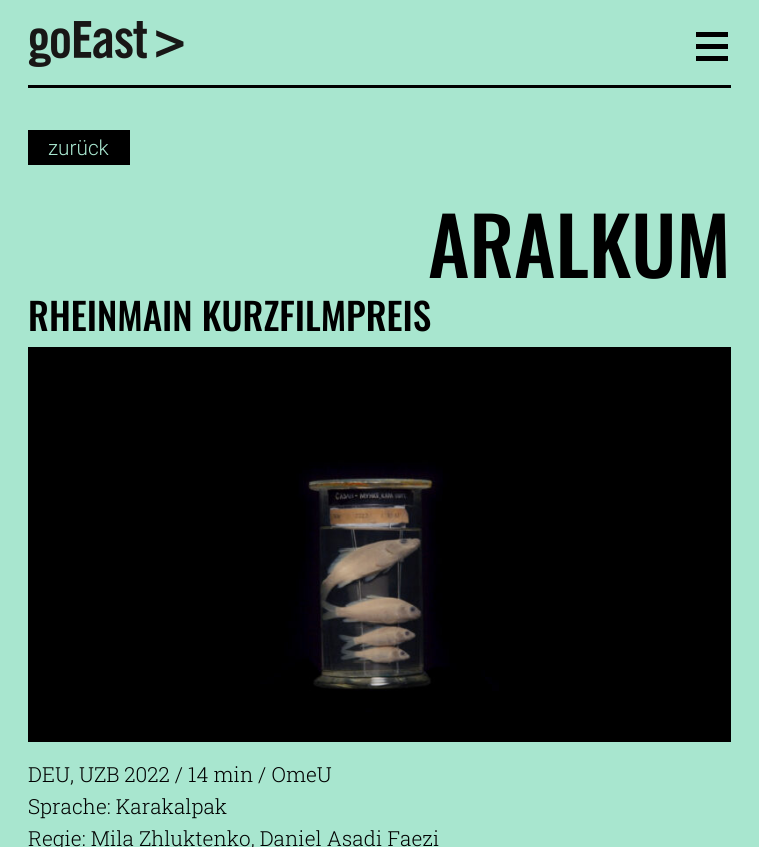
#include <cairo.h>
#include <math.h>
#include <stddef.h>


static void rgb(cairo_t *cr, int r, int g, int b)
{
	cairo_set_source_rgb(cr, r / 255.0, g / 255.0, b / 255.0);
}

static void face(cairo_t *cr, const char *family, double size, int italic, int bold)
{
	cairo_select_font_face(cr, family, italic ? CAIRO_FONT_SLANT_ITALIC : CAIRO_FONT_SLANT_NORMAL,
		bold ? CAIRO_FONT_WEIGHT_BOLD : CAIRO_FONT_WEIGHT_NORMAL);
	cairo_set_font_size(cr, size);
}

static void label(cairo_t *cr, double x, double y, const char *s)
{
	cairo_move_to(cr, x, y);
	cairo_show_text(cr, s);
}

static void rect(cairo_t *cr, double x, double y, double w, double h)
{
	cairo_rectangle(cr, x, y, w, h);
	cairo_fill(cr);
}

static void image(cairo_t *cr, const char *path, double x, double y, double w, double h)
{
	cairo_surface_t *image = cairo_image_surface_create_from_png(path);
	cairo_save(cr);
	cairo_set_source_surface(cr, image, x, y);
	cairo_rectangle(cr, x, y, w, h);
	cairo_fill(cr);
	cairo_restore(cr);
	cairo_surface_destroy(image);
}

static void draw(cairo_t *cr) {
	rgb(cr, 168, 230, 207);
	cairo_paint(cr);
	rgb(cr, 0, 0, 0);
	rect(cr, 28, 85, 703, 3);
	image(cr, "image0.png", 28, 21, 156, 46);
	rect(cr, 696, 32, 32, 5);
	rect(cr, 696, 44, 32, 5);
	rect(cr, 696, 56, 32, 5);
	rect(cr, 28, 130, 102, 35);
	face(cr, "Roboto Light", 20.75, 0, 0);
	rgb(cr, 168, 230, 207);
	label(cr, 48, 155, "zurück");
	face(cr, "Oswald Medium", 79.5, 0, 0);
	rgb(cr, 0, 0, 0);
	label(cr, 428, 278, "ARALKUM");
	face(cr, "Oswald Medium", 37.25, 0, 0);
	label(cr, 28, 331, "RHEINMAIN KURZFILMPREIS");
	image(cr, "image1.png", 28, 347, 703, 395);
	face(cr, "Roboto Slab Light", 20.75, 0, 0);
	label(cr, 28, 782, "DEU, UZB 2022 / 14 min / OmeU");
	label(cr, 28, 814, "Sprache: Karakalpak");
	label(cr, 28, 846, "Regie: Mila Zhluktenko, Daniel Asadi Faezi");
}

int main(void) {
	cairo_surface_t *surface = cairo_image_surface_create(CAIRO_FORMAT_RGB24, 759, 847);
	cairo_t *cr = cairo_create(surface);
	cairo_font_options_t *options = cairo_font_options_create();
	cairo_font_options_set_hint_metrics(options, CAIRO_HINT_METRICS_OFF);
	cairo_font_options_set_hint_style(options, CAIRO_HINT_STYLE_NONE);
	cairo_set_font_options(cr, options);
	cairo_set_miter_limit(cr, 4);
	draw(cr);
	cairo_surface_write_to_png(surface, "render.png");
	cairo_font_options_destroy(options);
	cairo_destroy(cr);
	cairo_surface_destroy(surface);
	return 0;
}
